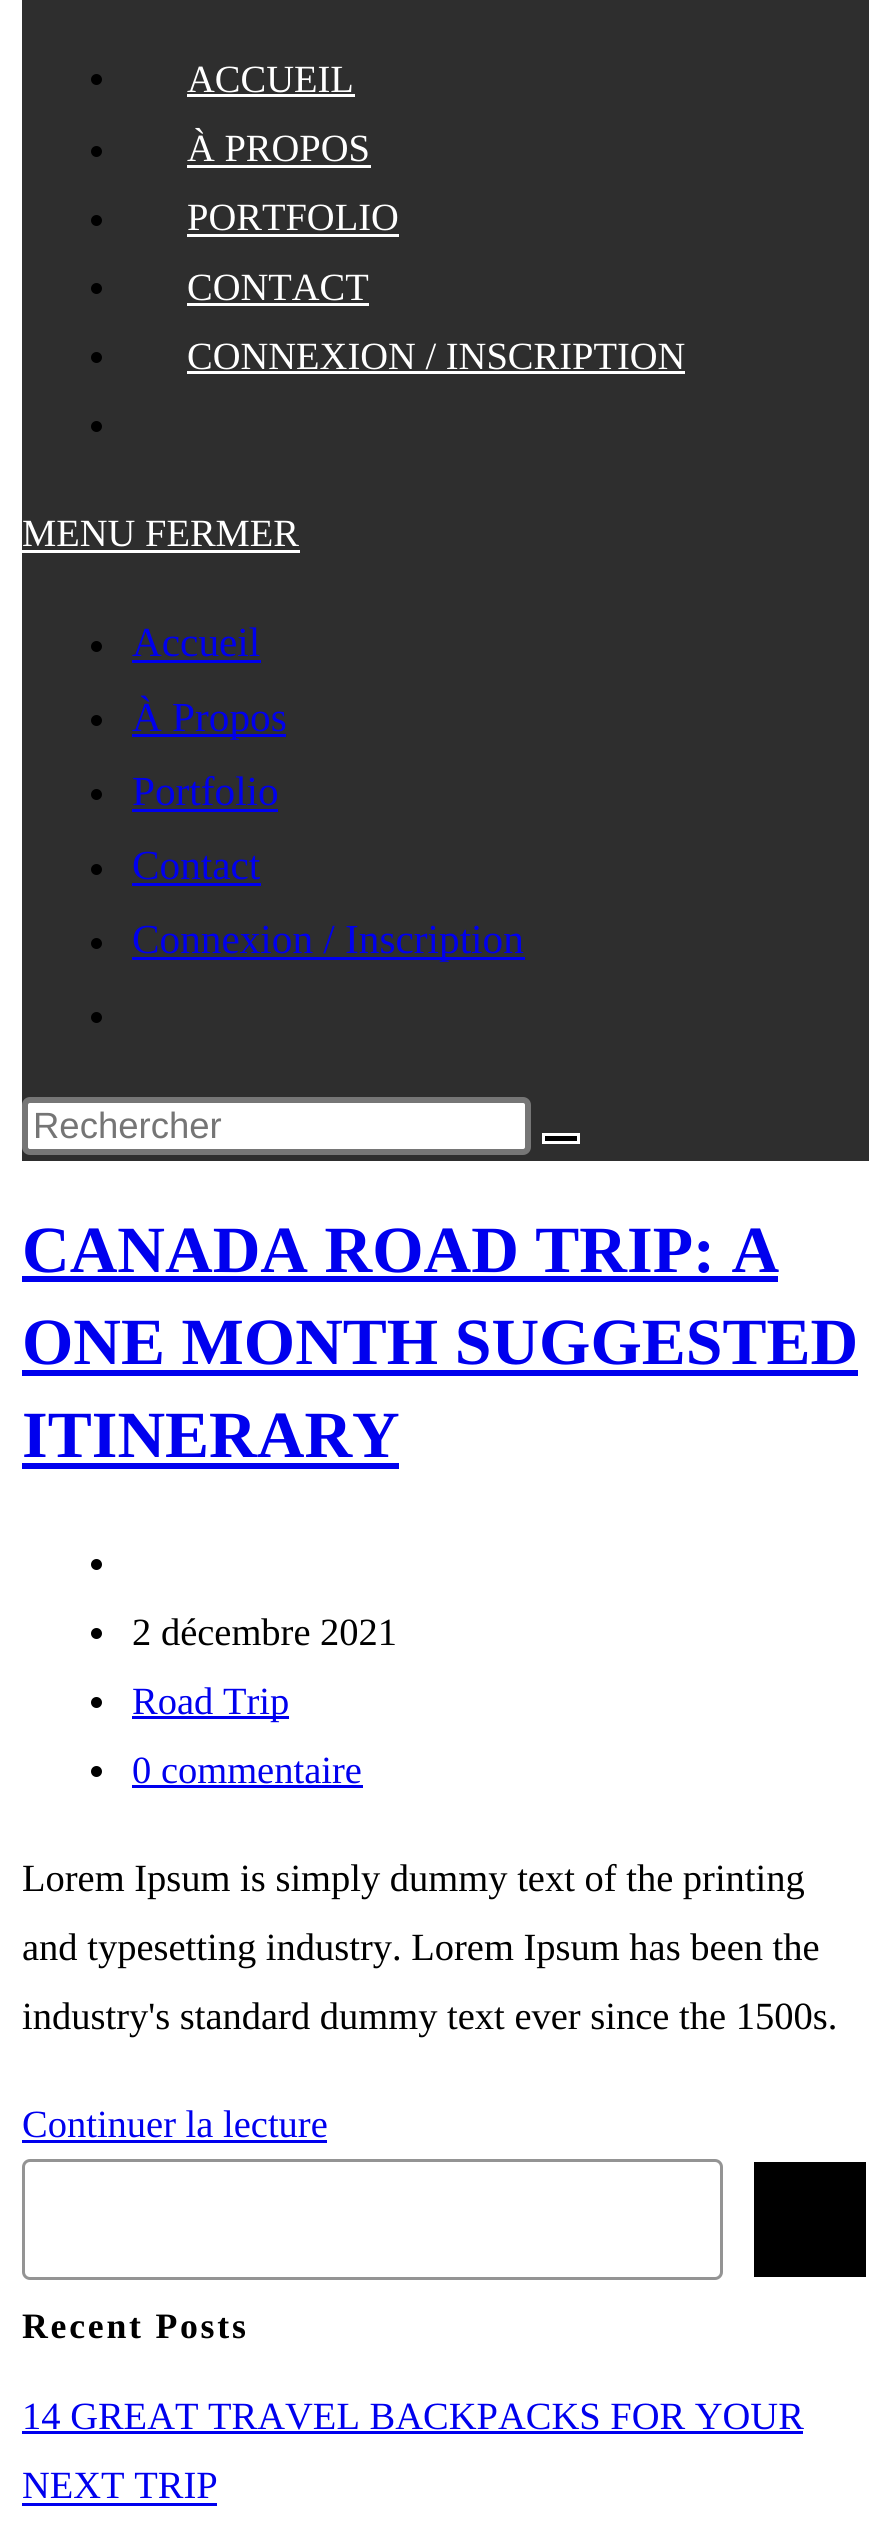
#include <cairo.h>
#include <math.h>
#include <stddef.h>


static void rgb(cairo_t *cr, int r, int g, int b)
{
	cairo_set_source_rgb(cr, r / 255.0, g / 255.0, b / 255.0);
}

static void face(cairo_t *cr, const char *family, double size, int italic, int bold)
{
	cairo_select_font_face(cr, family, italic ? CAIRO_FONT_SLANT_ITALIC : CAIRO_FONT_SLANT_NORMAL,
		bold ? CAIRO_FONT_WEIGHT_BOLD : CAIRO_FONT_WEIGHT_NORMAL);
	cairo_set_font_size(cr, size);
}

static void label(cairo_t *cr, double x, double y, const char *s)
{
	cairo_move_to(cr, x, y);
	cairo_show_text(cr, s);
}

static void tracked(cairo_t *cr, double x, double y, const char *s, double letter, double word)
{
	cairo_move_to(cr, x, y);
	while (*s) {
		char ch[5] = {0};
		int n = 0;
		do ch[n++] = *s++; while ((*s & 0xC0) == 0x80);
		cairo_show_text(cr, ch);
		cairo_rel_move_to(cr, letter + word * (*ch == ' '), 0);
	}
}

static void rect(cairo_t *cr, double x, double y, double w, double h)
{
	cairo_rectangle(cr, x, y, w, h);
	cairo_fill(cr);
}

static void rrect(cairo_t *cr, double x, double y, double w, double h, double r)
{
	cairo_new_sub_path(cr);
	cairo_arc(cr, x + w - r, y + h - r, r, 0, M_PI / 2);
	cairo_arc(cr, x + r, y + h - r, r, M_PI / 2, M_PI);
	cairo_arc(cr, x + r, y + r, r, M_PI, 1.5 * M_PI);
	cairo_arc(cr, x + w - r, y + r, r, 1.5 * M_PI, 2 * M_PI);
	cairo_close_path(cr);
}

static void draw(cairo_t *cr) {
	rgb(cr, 255, 255, 255);
	cairo_paint(cr);
	rgb(cr, 46, 46, 46);
	rect(cr, 22, 0, 847, 1161);
	rgb(cr, 0, 0, 0);
	cairo_arc(cr, 96.5, 79.5, 5.5, 0, 2 * M_PI);
	cairo_fill(cr);
	face(cr, "Liberation Serif", 38.5, 0, 0);
	rgb(cr, 255, 255, 255);
	label(cr, 187, 92, "ACCUEIL");
	rect(cr, 187, 94, 168, 3);
	rgb(cr, 0, 0, 0);
	cairo_new_path(cr);
	cairo_arc(cr, 96.5, 151.5, 5.5, 0, 2 * M_PI);
	cairo_fill(cr);
	rgb(cr, 255, 255, 255);
	label(cr, 187, 161, "À PROPOS");
	rect(cr, 187, 165, 184, 3);
	rgb(cr, 0, 0, 0);
	cairo_new_path(cr);
	cairo_arc(cr, 96.5, 220.5, 5.5, 0, 2 * M_PI);
	cairo_fill(cr);
	rgb(cr, 255, 255, 255);
	label(cr, 187, 230, "PORTFOLIO");
	rect(cr, 187, 234, 212, 3);
	rgb(cr, 0, 0, 0);
	cairo_new_path(cr);
	cairo_arc(cr, 96.5, 288.5, 5.5, 0, 2 * M_PI);
	cairo_fill(cr);
	rgb(cr, 255, 255, 255);
	label(cr, 187, 300, "CONTACT");
	rect(cr, 187, 303, 182, 3);
	rgb(cr, 0, 0, 0);
	cairo_new_path(cr);
	cairo_arc(cr, 96.5, 357.5, 5.5, 0, 2 * M_PI);
	cairo_fill(cr);
	rgb(cr, 255, 255, 255);
	label(cr, 187, 369, "CONNEXION / INSCRIPTION");
	rect(cr, 187, 371, 498, 3);
	rgb(cr, 0, 0, 0);
	cairo_new_path(cr);
	cairo_arc(cr, 96.5, 426.5, 5.5, 0, 2 * M_PI);
	cairo_fill(cr);
	rgb(cr, 255, 255, 255);
	label(cr, 22, 546, "MENU FERMER");
	rect(cr, 22, 550, 278, 3);
	rgb(cr, 0, 0, 0);
	cairo_new_path(cr);
	cairo_arc(cr, 96.5, 646.5, 5.5, 0, 2 * M_PI);
	cairo_fill(cr);
	face(cr, "Liberation Serif", 41.25, 0, 0);
	rgb(cr, 0, 0, 238);
	label(cr, 132, 656, "Accueil");
	rect(cr, 132, 660, 129, 3);
	rgb(cr, 0, 0, 0);
	cairo_new_path(cr);
	cairo_arc(cr, 96.5, 720.5, 5.5, 0, 2 * M_PI);
	cairo_fill(cr);
	rgb(cr, 0, 0, 238);
	rect(cr, 132, 734, 154, 3);
	label(cr, 132, 731, "À Propos");
	rgb(cr, 0, 0, 0);
	cairo_new_path(cr);
	cairo_arc(cr, 96.5, 794.5, 5.5, 0, 2 * M_PI);
	cairo_fill(cr);
	rgb(cr, 0, 0, 238);
	label(cr, 132, 805, "Portfolio");
	rect(cr, 132, 809, 146, 3);
	rgb(cr, 0, 0, 0);
	cairo_new_path(cr);
	cairo_arc(cr, 96.5, 869.5, 5.5, 0, 2 * M_PI);
	cairo_fill(cr);
	rgb(cr, 0, 0, 238);
	label(cr, 132, 879, "Contact");
	rect(cr, 132, 883, 129, 3);
	rgb(cr, 0, 0, 0);
	cairo_new_path(cr);
	cairo_arc(cr, 96.5, 943.5, 5.5, 0, 2 * M_PI);
	cairo_fill(cr);
	rgb(cr, 0, 0, 238);
	rect(cr, 132, 957, 393, 3);
	label(cr, 132, 953, "Connexion / Inscription");
	rgb(cr, 0, 0, 0);
	cairo_new_path(cr);
	cairo_arc(cr, 96.5, 1017.5, 5.5, 0, 2 * M_PI);
	cairo_fill(cr);
	rgb(cr, 255, 255, 255);
	rrect(cr, 25, 1100, 503, 52, 5);
	cairo_fill_preserve(cr);
	rgb(cr, 118, 118, 118);
	cairo_set_line_width(cr, 6);
	cairo_stroke(cr);
	face(cr, "Liberation Sans", 36.5, 0, 0);
	rgb(cr, 117, 117, 117);
	label(cr, 33, 1138, "Rechercher");
	rgb(cr, 0, 0, 0);
	cairo_rectangle(cr, 543.5, 1134.5, 35, 8);
	cairo_fill_preserve(cr);
	rgb(cr, 255, 255, 255);
	cairo_set_line_width(cr, 3);
	cairo_stroke(cr);
	face(cr, "Liberation Serif", 66, 0, 1);
	rgb(cr, 0, 0, 238);
	label(cr, 22, 1272, "CANADA ROAD TRIP: A");
	rect(cr, 22, 1276, 756, 6);
	label(cr, 22, 1364, "ONE MONTH SUGGESTED");
	rect(cr, 22, 1370, 836, 6);
	label(cr, 22, 1457, "ITINERARY");
	rect(cr, 22, 1463, 377, 6);
	rgb(cr, 0, 0, 0);
	cairo_new_path(cr);
	cairo_arc(cr, 96.5, 1564.5, 5.5, 0, 2 * M_PI);
	cairo_fill(cr);
	cairo_arc(cr, 96.5, 1633.5, 5.5, 0, 2 * M_PI);
	cairo_fill(cr);
	face(cr, "Liberation Serif", 38.5, 0, 0);
	label(cr, 132, 1645, "2 décembre 2021");
	cairo_new_path(cr);
	cairo_arc(cr, 96.5, 1702.5, 5.5, 0, 2 * M_PI);
	cairo_fill(cr);
	rgb(cr, 0, 0, 238);
	rect(cr, 132, 1716, 157, 3);
	label(cr, 132, 1714, "Road Trip");
	rgb(cr, 0, 0, 0);
	cairo_new_path(cr);
	cairo_arc(cr, 96.5, 1771.5, 5.5, 0, 2 * M_PI);
	cairo_fill(cr);
	rgb(cr, 0, 0, 238);
	label(cr, 132, 1783, "0 commentaire");
	rect(cr, 132, 1785, 231, 3);
	rgb(cr, 0, 0, 0);
	label(cr, 22, 1891, "Lorem Ipsum is simply dummy text of the printing");
	label(cr, 22, 1960, "and typesetting industry. Lorem Ipsum has been the");
	label(cr, 22, 2029, "industry's standard dummy text ever since the 1500s.");
	rgb(cr, 0, 0, 238);
	label(cr, 22, 2137, "Continuer la lecture");
	rect(cr, 22, 2140, 305, 3);
	rrect(cr, 23.5, 2160.5, 698, 118, 6.5);
	rgb(cr, 148, 148, 148);
	cairo_stroke(cr);
	rgb(cr, 0, 0, 0);
	rect(cr, 754, 2162, 112, 115);
	face(cr, "Liberation Serif", 35.75, 0, 1);
	tracked(cr, 22, 2338, "Recent Posts", 2.75, 0);
	face(cr, "Liberation Serif", 38.5, 0, 0);
	rgb(cr, 0, 0, 238);
	label(cr, 22, 2429, "14 GREAT TRAVEL BACKPACKS FOR YOUR");
	rect(cr, 22, 2431, 781, 3);
	label(cr, 22, 2498, "NEXT TRIP");
	rect(cr, 22, 2503, 195, 3);
}

int main(void) {
	cairo_surface_t *surface = cairo_image_surface_create(CAIRO_FORMAT_RGB24, 889, 2533);
	cairo_t *cr = cairo_create(surface);
	cairo_font_options_t *options = cairo_font_options_create();
	cairo_font_options_set_hint_metrics(options, CAIRO_HINT_METRICS_OFF);
	cairo_font_options_set_hint_style(options, CAIRO_HINT_STYLE_NONE);
	cairo_set_font_options(cr, options);
	cairo_set_miter_limit(cr, 4);
	draw(cr);
	cairo_surface_write_to_png(surface, "render.png");
	cairo_font_options_destroy(options);
	cairo_destroy(cr);
	cairo_surface_destroy(surface);
	return 0;
}
